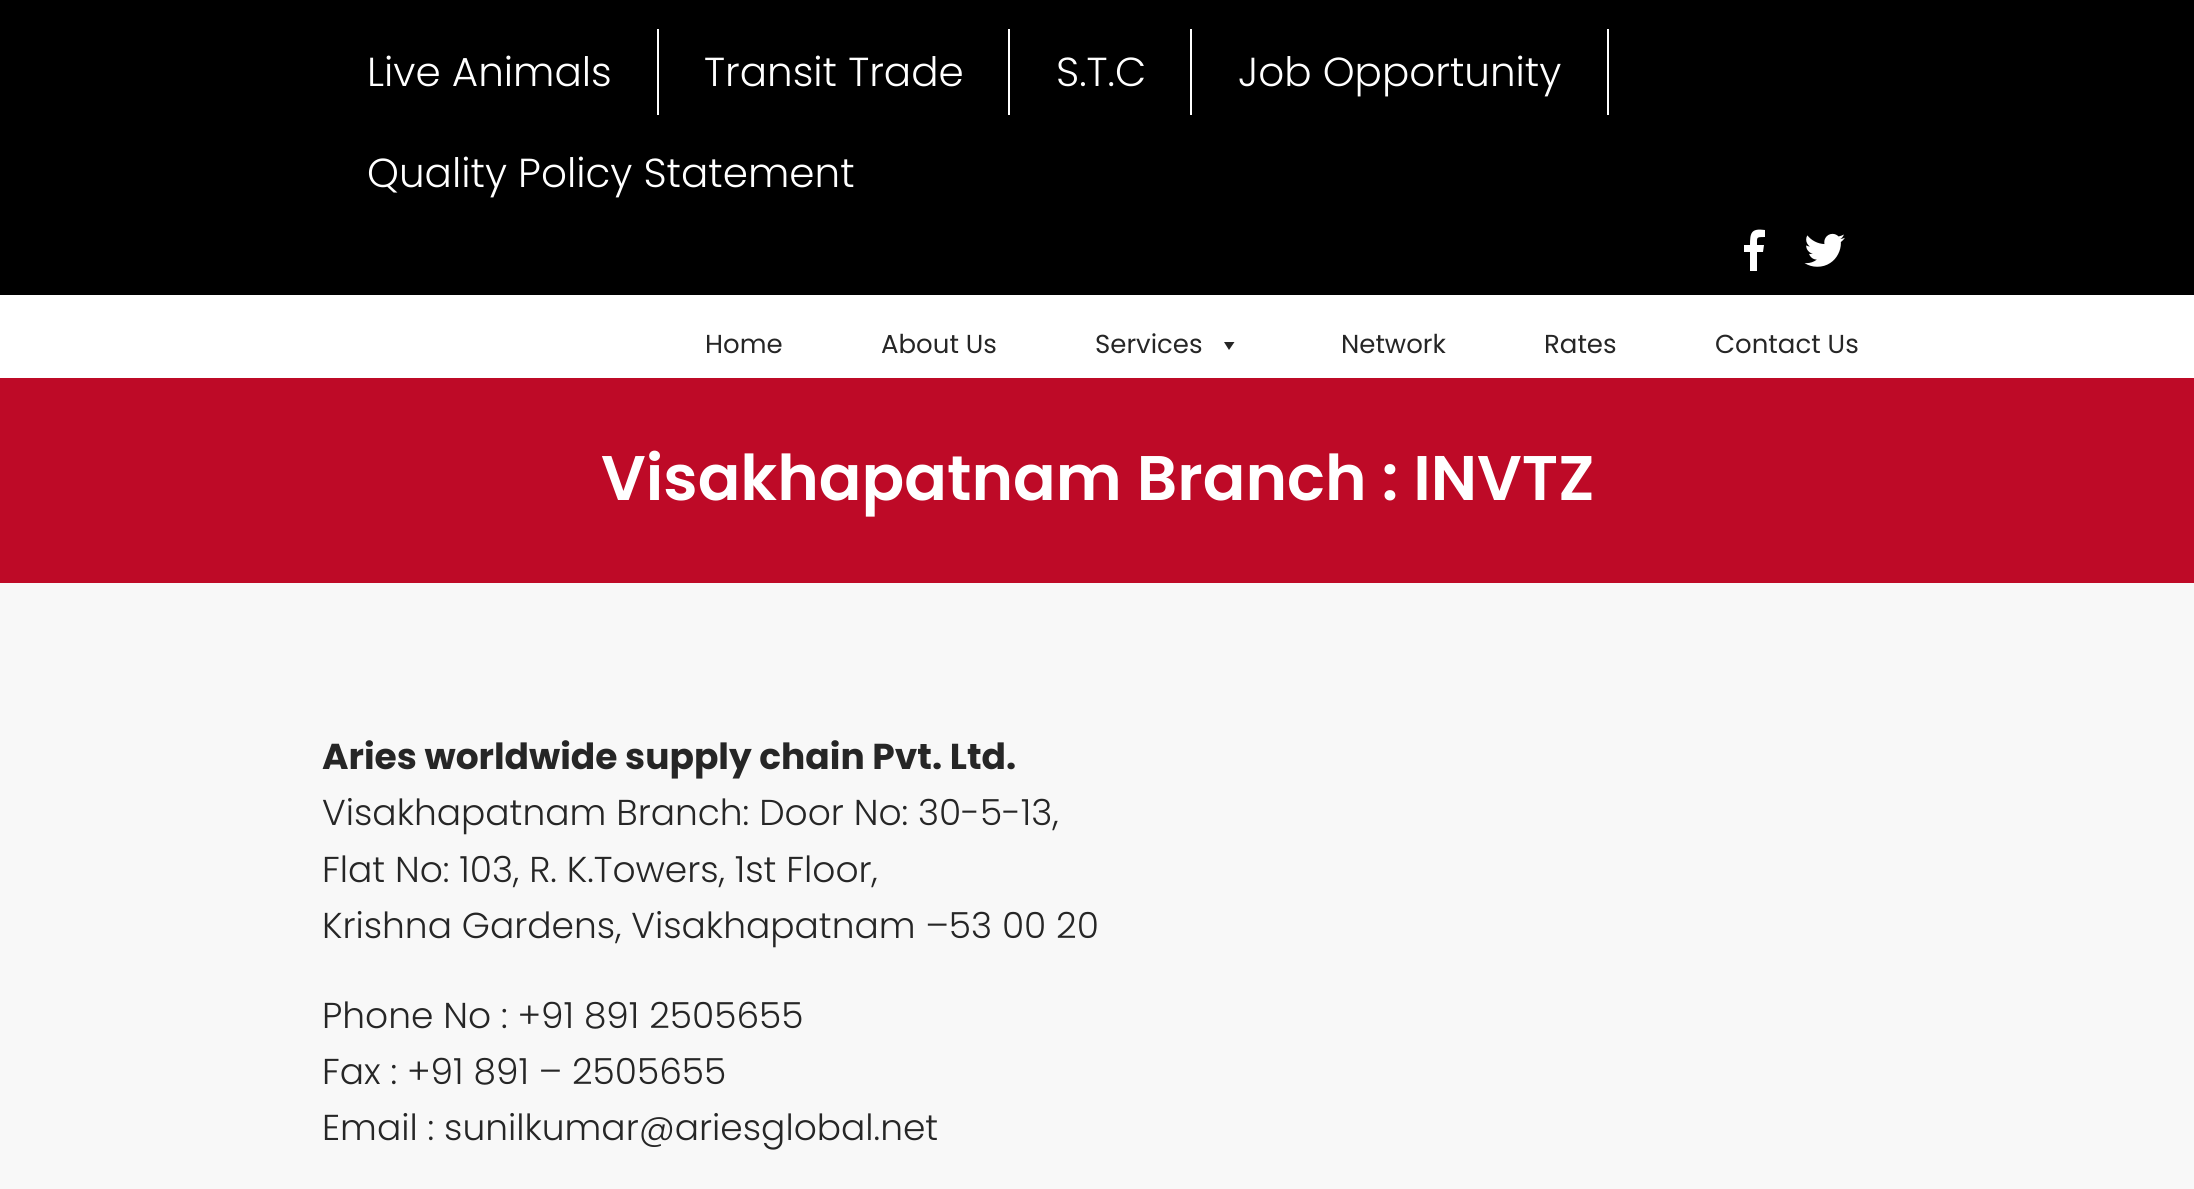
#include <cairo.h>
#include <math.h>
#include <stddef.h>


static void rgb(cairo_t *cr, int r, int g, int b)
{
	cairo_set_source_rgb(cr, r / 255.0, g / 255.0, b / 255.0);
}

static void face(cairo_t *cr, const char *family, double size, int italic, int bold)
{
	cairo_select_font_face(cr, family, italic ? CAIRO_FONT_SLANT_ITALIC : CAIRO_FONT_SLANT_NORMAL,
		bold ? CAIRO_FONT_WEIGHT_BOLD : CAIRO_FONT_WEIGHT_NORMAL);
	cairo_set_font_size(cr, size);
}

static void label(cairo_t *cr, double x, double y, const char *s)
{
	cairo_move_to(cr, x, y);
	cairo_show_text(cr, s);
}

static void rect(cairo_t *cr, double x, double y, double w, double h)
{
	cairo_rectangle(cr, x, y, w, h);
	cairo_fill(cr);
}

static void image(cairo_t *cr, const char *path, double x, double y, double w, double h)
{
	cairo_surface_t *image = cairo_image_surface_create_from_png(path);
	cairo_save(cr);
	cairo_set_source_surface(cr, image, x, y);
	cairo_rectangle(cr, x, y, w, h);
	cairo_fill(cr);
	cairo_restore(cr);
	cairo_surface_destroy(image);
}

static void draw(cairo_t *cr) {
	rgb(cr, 255, 255, 255);
	cairo_paint(cr);
	rgb(cr, 0, 0, 0);
	rect(cr, 0, 0, 2194, 295);
	rgb(cr, 255, 255, 255);
	rect(cr, 657, 29, 2, 86);
	face(cr, "Poppins Light", 40.5, 0, 0);
	label(cr, 367, 86, "Live Animals");
	rect(cr, 1008, 29, 2, 86);
	label(cr, 704, 86, "Transit Trade");
	rect(cr, 1190, 29, 2, 86);
	label(cr, 1056, 86, "S.T.C");
	rect(cr, 1607, 29, 2, 86);
	label(cr, 1238, 86, "Job Opportunity");
	label(cr, 367, 187, "Quality Policy Statement");
	cairo_new_path(cr);
	cairo_move_to(cr, 1750, 271);
	cairo_line_to(cr, 1750, 252);
	cairo_line_to(cr, 1744, 252);
	cairo_line_to(cr, 1744, 245);
	cairo_line_to(cr, 1750, 245);
	cairo_curve_to(cr, 1750, 233, 1751, 228, 1765, 230);
	cairo_line_to(cr, 1765, 237);
	cairo_curve_to(cr, 1756, 237, 1757, 237, 1757, 245);
	cairo_line_to(cr, 1764, 245);
	cairo_line_to(cr, 1763, 252);
	cairo_line_to(cr, 1757, 252);
	cairo_line_to(cr, 1757, 271);
	cairo_close_path(cr);
	cairo_fill(cr);
	image(cr, "image0.png", 1804, 233, 41, 34);
	face(cr, "Poppins", 26, 0, 0);
	rgb(cr, 38, 38, 38);
	label(cr, 705, 353, "Home");
	label(cr, 881, 353, "About Us");
	label(cr, 1095, 353, "Services");
	cairo_new_path(cr);
	cairo_move_to(cr, 1234.5, 342);
	cairo_line_to(cr, 1229, 350);
	cairo_line_to(cr, 1224, 342);
	cairo_close_path(cr);
	cairo_fill(cr);
	label(cr, 1341, 353, "Network");
	label(cr, 1544, 353, "Rates");
	label(cr, 1715, 353, "Contact Us");
	rgb(cr, 248, 248, 248);
	rect(cr, 0, 583, 2194, 606);
	rgb(cr, 190, 10, 39);
	rect(cr, 0, 378, 2194, 205);
	face(cr, "Poppins SemiBold", 63, 0, 0);
	rgb(cr, 255, 255, 255);
	label(cr, 601, 500, "Visakhapatnam Branch : INVTZ");
	face(cr, "Poppins", 36, 0, 1);
	rgb(cr, 38, 38, 38);
	label(cr, 322, 769, "Aries worldwide supply chain Pvt. Ltd.");
	face(cr, "Poppins Light", 36, 0, 0);
	label(cr, 322, 825, "Visakhapatnam Branch: Door No: 30-5-13,");
	label(cr, 322, 882, "Flat No: 103, R. K.Towers, 1st Floor,");
	label(cr, 322, 938, "Krishna Gardens, Visakhapatnam –53 00 20");
	label(cr, 322, 1028, "Phone No : +91 891 2505655");
	label(cr, 322, 1084, "Fax : +91 891 – 2505655");
	label(cr, 322, 1140, "Email : sunilkumar@ariesglobal.net");
}

int main(void) {
	cairo_surface_t *surface = cairo_image_surface_create(CAIRO_FORMAT_RGB24, 2194, 1189);
	cairo_t *cr = cairo_create(surface);
	cairo_font_options_t *options = cairo_font_options_create();
	cairo_font_options_set_hint_metrics(options, CAIRO_HINT_METRICS_OFF);
	cairo_font_options_set_hint_style(options, CAIRO_HINT_STYLE_NONE);
	cairo_set_font_options(cr, options);
	cairo_set_miter_limit(cr, 4);
	draw(cr);
	cairo_surface_write_to_png(surface, "render.png");
	cairo_font_options_destroy(options);
	cairo_destroy(cr);
	cairo_surface_destroy(surface);
	return 0;
}
